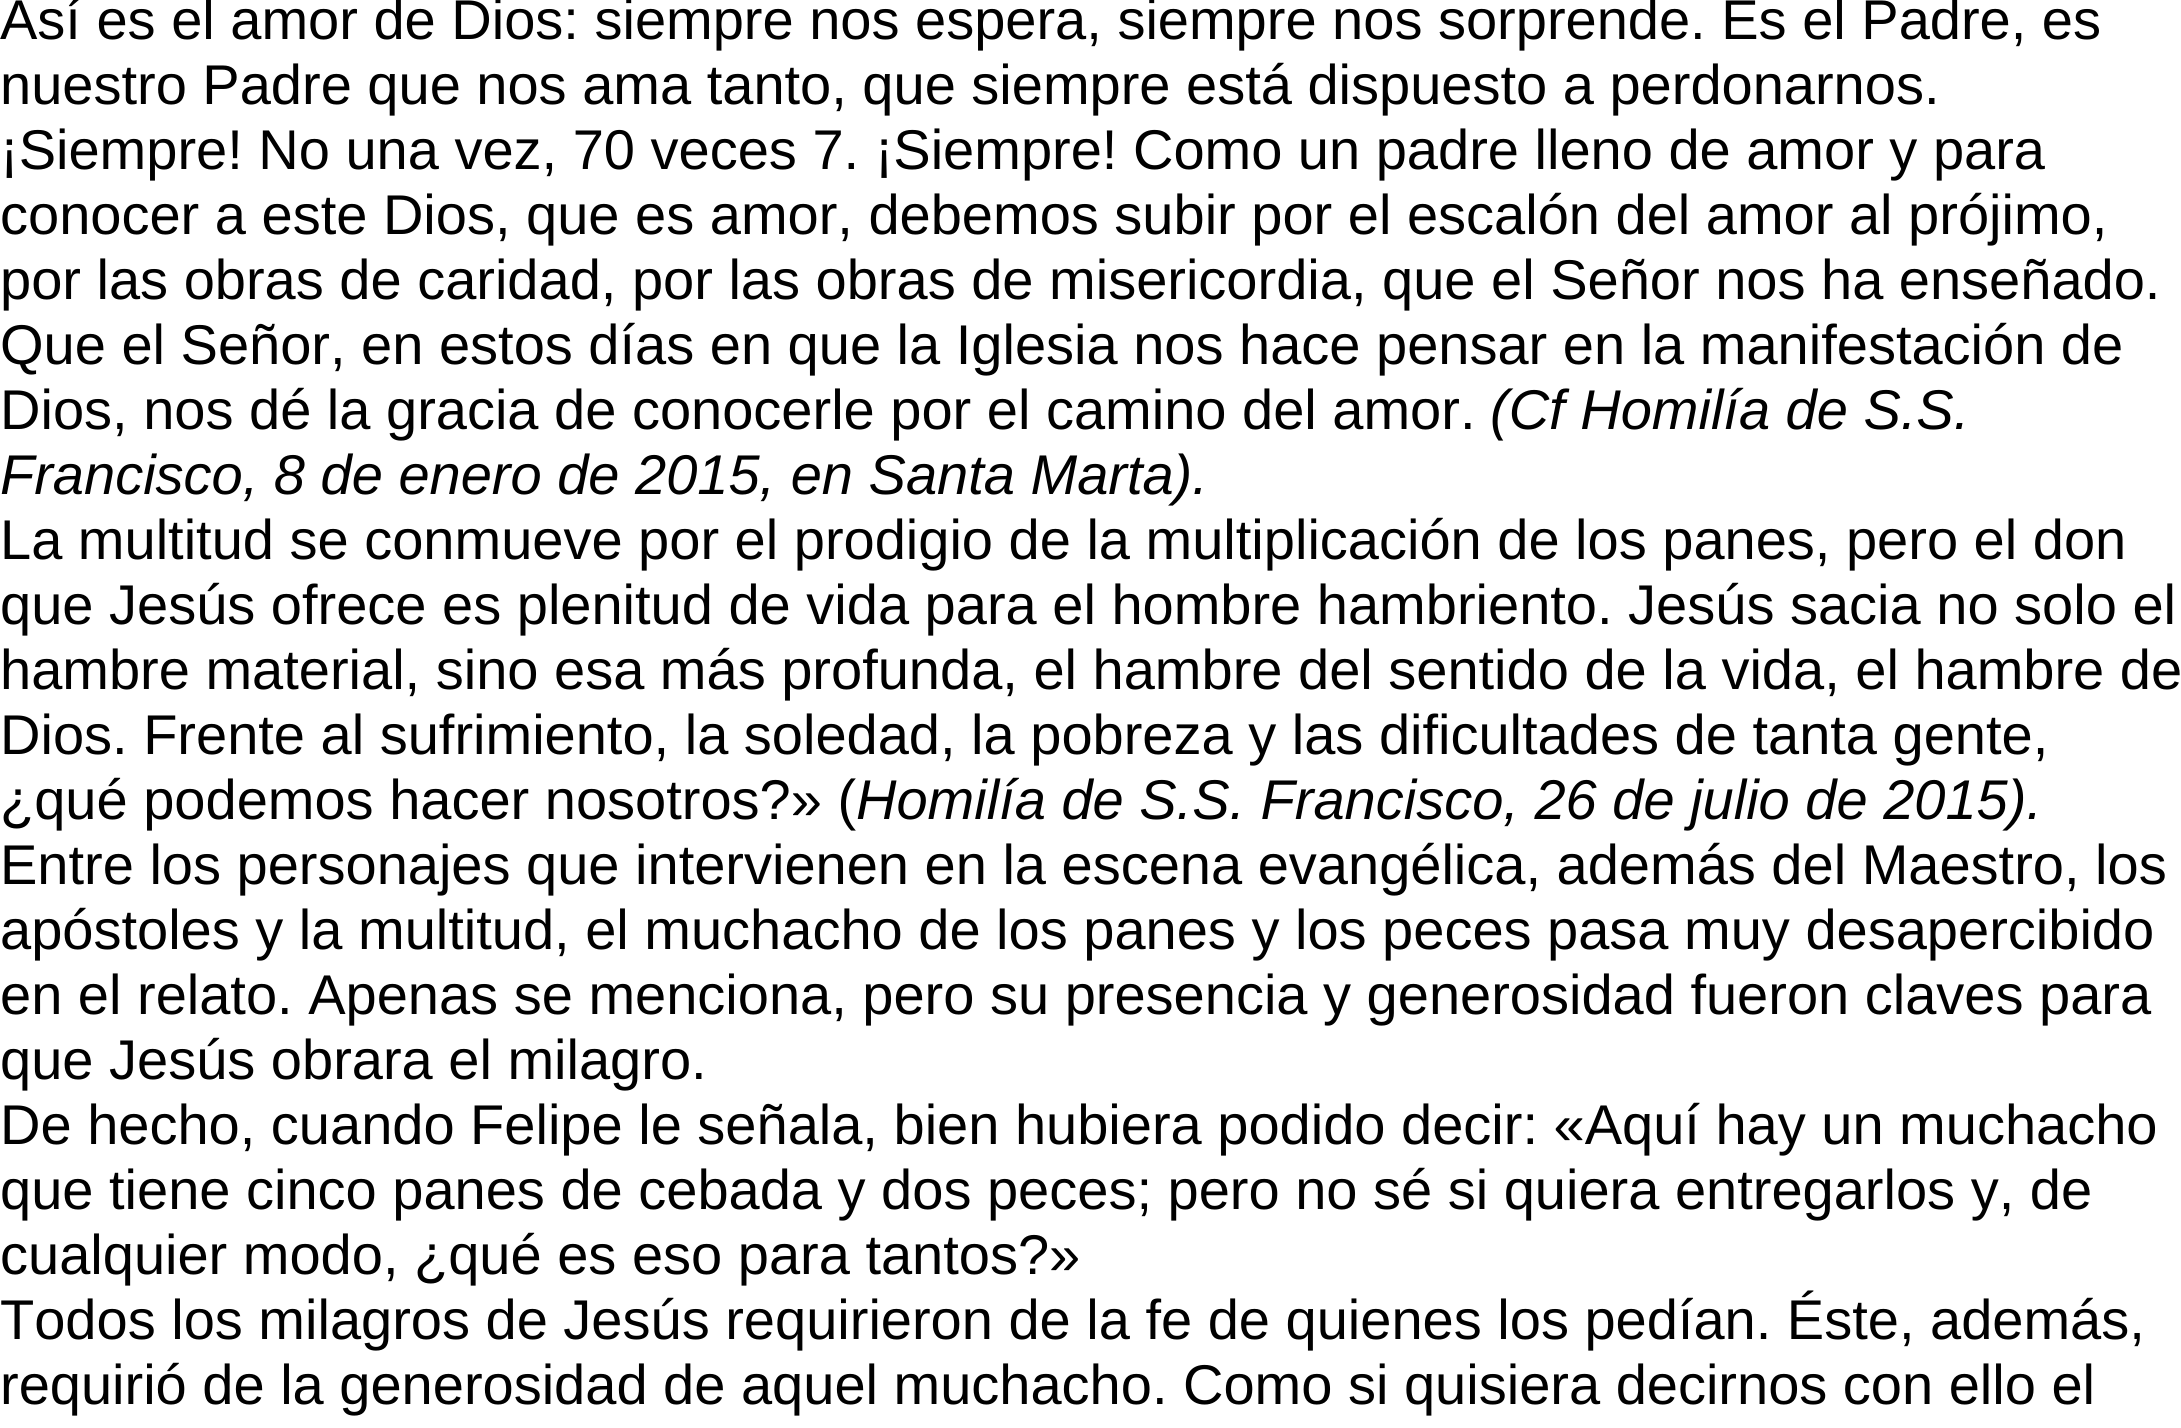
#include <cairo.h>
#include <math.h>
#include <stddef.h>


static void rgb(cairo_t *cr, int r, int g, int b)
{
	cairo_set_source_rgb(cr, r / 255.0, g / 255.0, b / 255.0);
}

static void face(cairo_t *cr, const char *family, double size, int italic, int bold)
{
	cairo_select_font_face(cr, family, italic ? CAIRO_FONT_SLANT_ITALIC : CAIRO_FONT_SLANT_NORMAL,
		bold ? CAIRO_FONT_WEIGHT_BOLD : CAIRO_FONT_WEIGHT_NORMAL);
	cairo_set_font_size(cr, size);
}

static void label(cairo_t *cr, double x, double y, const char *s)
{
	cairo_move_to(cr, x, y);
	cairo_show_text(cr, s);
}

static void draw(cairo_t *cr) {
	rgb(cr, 255, 255, 255);
	cairo_paint(cr);
	face(cr, "Liberation Sans", 56, 0, 0);
	rgb(cr, 0, 0, 0);
	label(cr, 0, 39, "Así es el amor de Dios: siempre nos espera, siempre nos sorprende. Es el Padre, es");
	label(cr, 0, 104, "nuestro Padre que nos ama tanto, que siempre está dispuesto a perdonarnos.");
	label(cr, 0, 169, "¡Siempre! No una vez, 70 veces 7. ¡Siempre! Como un padre lleno de amor y para");
	label(cr, 0, 234, "conocer a este Dios, que es amor, debemos subir por el escalón del amor al prójimo,");
	label(cr, 0, 299, "por las obras de caridad, por las obras de misericordia, que el Señor nos ha enseñado.");
	label(cr, 0, 364, "Que el Señor, en estos días en que la Iglesia nos hace pensar en la manifestación de");
	label(cr, 0, 429, "Dios, nos dé la gracia de conocerle por el camino del amor.");
	face(cr, "Liberation Sans", 56, 1, 0);
	label(cr, 1490, 429, "(Cf Homilía de S.S.");
	label(cr, 0, 494, "Francisco, 8 de enero de 2015, en Santa Marta).");
	face(cr, "Liberation Sans", 56, 0, 0);
	label(cr, 0, 559, "La multitud se conmueve por el prodigio de la multiplicación de los panes, pero el don");
	label(cr, 0, 624, "que Jesús ofrece es plenitud de vida para el hombre hambriento. Jesús sacia no solo el");
	label(cr, 0, 689, "hambre material, sino esa más profunda, el hambre del sentido de la vida, el hambre de");
	label(cr, 0, 754, "Dios. Frente al sufrimiento, la soledad, la pobreza y las dificultades de tanta gente,");
	label(cr, 0, 819, "¿qué podemos hacer nosotros?» (");
	face(cr, "Liberation Sans", 56, 1, 0);
	label(cr, 856, 819, "Homilía de S.S. Francisco, 26 de julio de 2015).");
	face(cr, "Liberation Sans", 56, 0, 0);
	label(cr, 0, 884, "Entre los personajes que intervienen en la escena evangélica, además del Maestro, los");
	label(cr, 0, 949, "apóstoles y la multitud, el muchacho de los panes y los peces pasa muy desapercibido");
	label(cr, 0, 1014, "en el relato. Apenas se menciona, pero su presencia y generosidad fueron claves para");
	label(cr, 0, 1079, "que Jesús obrara el milagro.");
	label(cr, 0, 1144, "De hecho, cuando Felipe le señala, bien hubiera podido decir: «Aquí hay un muchacho");
	label(cr, 0, 1209, "que tiene cinco panes de cebada y dos peces; pero no sé si quiera entregarlos y, de");
	label(cr, 0, 1274, "cualquier modo, ¿qué es eso para tantos?»");
	label(cr, 0, 1339, "Todos los milagros de Jesús requirieron de la fe de quienes los pedían. Éste, además,");
	label(cr, 0, 1404, "requirió de la generosidad de aquel muchacho. Como si quisiera decirnos con ello el");
}

int main(void) {
	cairo_surface_t *surface = cairo_image_surface_create(CAIRO_FORMAT_RGB24, 2181, 1428);
	cairo_t *cr = cairo_create(surface);
	cairo_font_options_t *options = cairo_font_options_create();
	cairo_font_options_set_hint_metrics(options, CAIRO_HINT_METRICS_OFF);
	cairo_font_options_set_hint_style(options, CAIRO_HINT_STYLE_NONE);
	cairo_set_font_options(cr, options);
	cairo_set_miter_limit(cr, 4);
	draw(cr);
	cairo_surface_write_to_png(surface, "render.png");
	cairo_font_options_destroy(options);
	cairo_destroy(cr);
	cairo_surface_destroy(surface);
	return 0;
}
